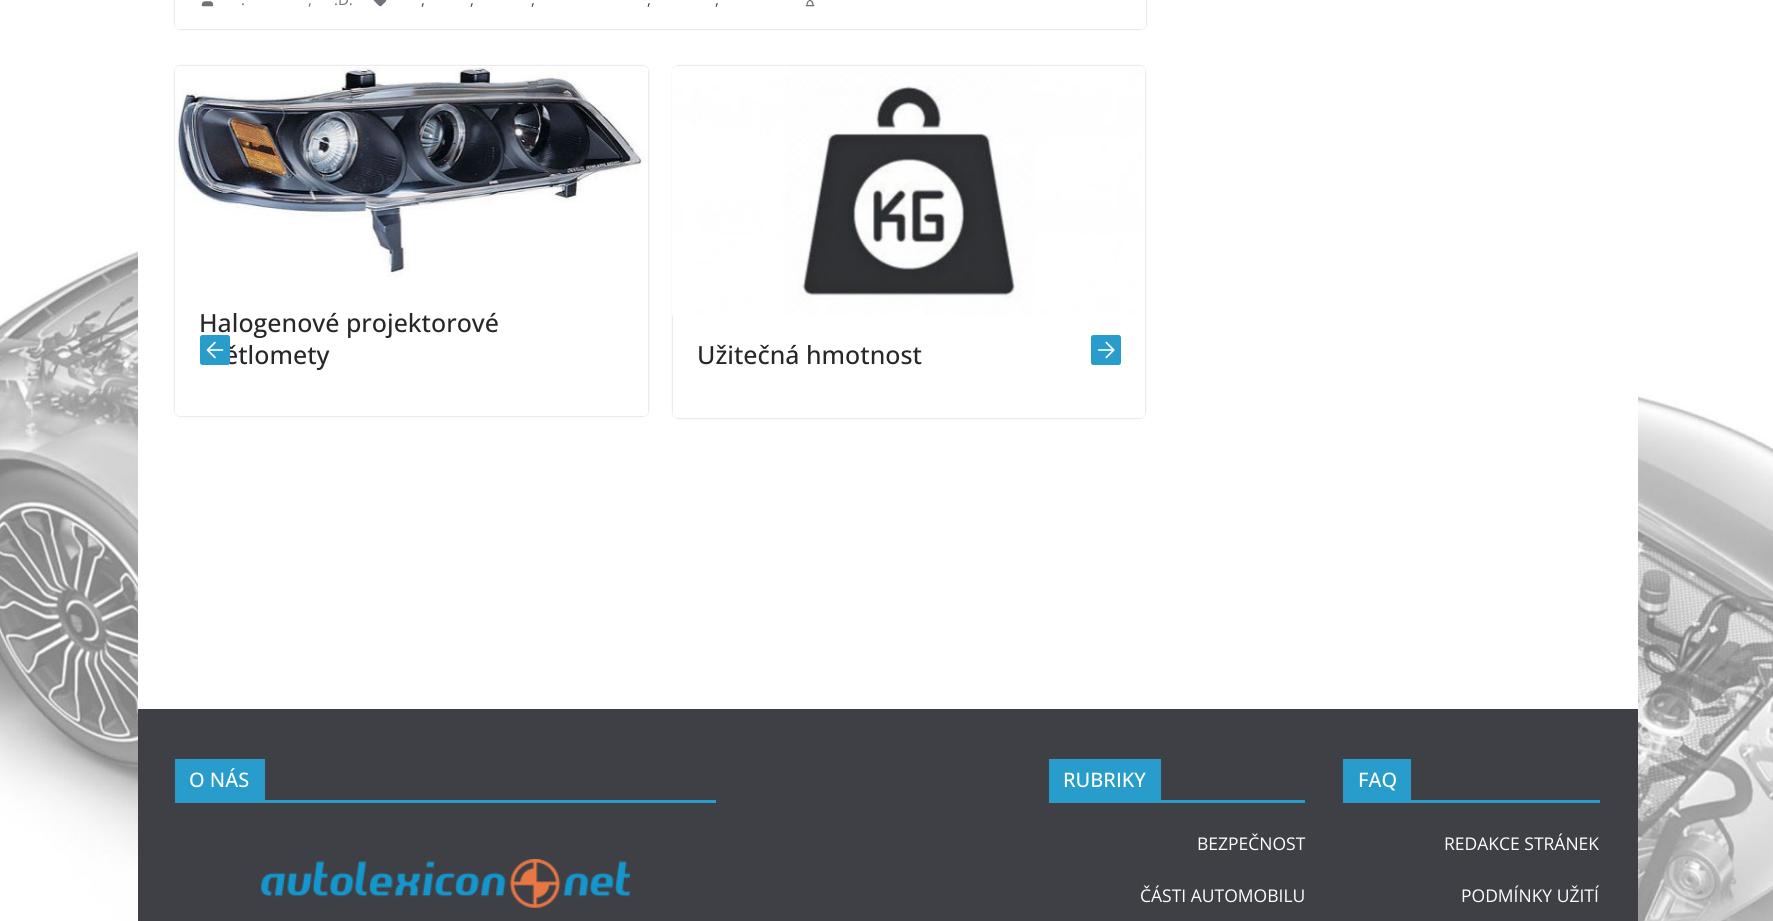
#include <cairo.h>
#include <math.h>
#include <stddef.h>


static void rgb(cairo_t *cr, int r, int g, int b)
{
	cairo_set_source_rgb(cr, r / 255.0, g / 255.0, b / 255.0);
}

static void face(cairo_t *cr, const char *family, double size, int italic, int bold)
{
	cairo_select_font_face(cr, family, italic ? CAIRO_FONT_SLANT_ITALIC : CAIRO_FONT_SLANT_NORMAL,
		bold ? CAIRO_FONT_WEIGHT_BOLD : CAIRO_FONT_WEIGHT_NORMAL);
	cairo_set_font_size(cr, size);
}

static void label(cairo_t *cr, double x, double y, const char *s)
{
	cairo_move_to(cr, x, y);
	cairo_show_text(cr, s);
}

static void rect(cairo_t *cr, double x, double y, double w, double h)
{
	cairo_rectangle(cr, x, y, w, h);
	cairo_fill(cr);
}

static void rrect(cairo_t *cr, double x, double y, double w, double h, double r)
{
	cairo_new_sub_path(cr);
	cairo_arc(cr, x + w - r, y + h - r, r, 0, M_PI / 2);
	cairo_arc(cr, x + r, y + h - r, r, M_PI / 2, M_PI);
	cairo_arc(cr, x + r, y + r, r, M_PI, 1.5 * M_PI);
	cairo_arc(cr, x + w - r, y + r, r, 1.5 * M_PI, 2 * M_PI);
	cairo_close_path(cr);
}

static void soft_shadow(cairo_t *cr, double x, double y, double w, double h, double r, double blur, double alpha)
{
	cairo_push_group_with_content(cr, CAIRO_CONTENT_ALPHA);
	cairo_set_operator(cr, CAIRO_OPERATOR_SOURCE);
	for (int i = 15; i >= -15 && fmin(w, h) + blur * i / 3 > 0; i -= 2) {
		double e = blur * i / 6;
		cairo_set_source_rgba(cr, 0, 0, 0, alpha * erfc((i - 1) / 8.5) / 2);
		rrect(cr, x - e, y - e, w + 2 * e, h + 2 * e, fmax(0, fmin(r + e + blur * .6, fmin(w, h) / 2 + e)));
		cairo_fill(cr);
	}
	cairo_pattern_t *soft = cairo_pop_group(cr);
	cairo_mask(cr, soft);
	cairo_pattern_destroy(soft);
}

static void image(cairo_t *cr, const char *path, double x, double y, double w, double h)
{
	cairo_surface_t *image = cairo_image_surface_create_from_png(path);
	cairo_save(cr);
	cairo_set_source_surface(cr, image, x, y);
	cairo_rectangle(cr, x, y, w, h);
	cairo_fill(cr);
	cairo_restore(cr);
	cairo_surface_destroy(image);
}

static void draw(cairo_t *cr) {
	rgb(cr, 255, 255, 255);
	cairo_paint(cr);
	image(cr, "image0.png", 0, 116, 1773, 805);
	rgb(cr, 255, 255, 255);
	rect(cr, 138, 116, 1500, 593);
	cairo_save(cr);
	cairo_set_fill_rule(cr, CAIRO_FILL_RULE_EVEN_ODD);
	cairo_new_path(cr);
	cairo_move_to(cr, 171, 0);
	cairo_line_to(cr, 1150, 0);
	cairo_line_to(cr, 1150, 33);
	cairo_line_to(cr, 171, 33);
	cairo_close_path(cr);
	cairo_move_to(cr, 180, -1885);
	cairo_line_to(cr, 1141, -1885);
	cairo_curve_to(cr, 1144, -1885, 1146, -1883, 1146, -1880);
	cairo_line_to(cr, 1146, 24);
	cairo_curve_to(cr, 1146, 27, 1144, 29, 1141, 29);
	cairo_line_to(cr, 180, 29);
	cairo_curve_to(cr, 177, 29, 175, 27, 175, 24);
	cairo_line_to(cr, 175, -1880);
	cairo_curve_to(cr, 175, -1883, 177, -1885, 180, -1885);
	cairo_close_path(cr);
	cairo_clip(cr);
	rgb(cr, 0, 0, 0);
	soft_shadow(cr, 175, -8, 971, 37, 5, 1, 0.24);
	cairo_restore(cr);
	image(cr, "image1.png", 201, 1, 13, 6);
	face(cr, "Open Sans", 15, 0, 0);
	rgb(cr, 113, 113, 122);
	label(cr, 241, 5, ".");
	label(cr, 308, 5, ",");
	label(cr, 334, 5, ".D.");
	image(cr, "image2.png", 373, 0, 14, 7);
	rgb(cr, 63, 63, 70);
	label(cr, 421, 5, ",");
	label(cr, 470, 5, ",");
	label(cr, 531, 5, ",");
	label(cr, 647, 5, ",");
	label(cr, 715, 5, ",");
	image(cr, "image3.png", 805, 0, 10, 7);
	cairo_save(cr);
	cairo_set_fill_rule(cr, CAIRO_FILL_RULE_EVEN_ODD);
	cairo_new_path(cr);
	cairo_move_to(cr, 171, 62);
	cairo_line_to(cr, 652, 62);
	cairo_line_to(cr, 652, 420);
	cairo_line_to(cr, 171, 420);
	cairo_close_path(cr);
	cairo_move_to(cr, 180, 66);
	cairo_line_to(cr, 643, 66);
	cairo_curve_to(cr, 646, 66, 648, 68, 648, 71);
	cairo_line_to(cr, 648, 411);
	cairo_curve_to(cr, 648, 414, 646, 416, 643, 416);
	cairo_line_to(cr, 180, 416);
	cairo_curve_to(cr, 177, 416, 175, 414, 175, 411);
	cairo_line_to(cr, 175, 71);
	cairo_curve_to(cr, 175, 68, 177, 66, 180, 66);
	cairo_close_path(cr);
	cairo_clip(cr);
	rgb(cr, 0, 0, 0);
	soft_shadow(cr, 175, 66, 473, 350, 5, 1, 0.24);
	cairo_restore(cr);
	image(cr, "image4.png", 175, 67, 473, 214);
	face(cr, "Open Sans Medium", 25, 0, 0);
	rgb(cr, 39, 39, 42);
	label(cr, 199, 332, "Halogenové projektorové");
	label(cr, 224, 364, "ětlomety");
	cairo_save(cr);
	cairo_set_fill_rule(cr, CAIRO_FILL_RULE_EVEN_ODD);
	cairo_new_path(cr);
	cairo_move_to(cr, 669, 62);
	cairo_line_to(cr, 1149, 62);
	cairo_line_to(cr, 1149, 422);
	cairo_line_to(cr, 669, 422);
	cairo_close_path(cr);
	cairo_move_to(cr, 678, 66);
	cairo_line_to(cr, 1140, 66);
	cairo_curve_to(cr, 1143, 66, 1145, 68, 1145, 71);
	cairo_line_to(cr, 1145, 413);
	cairo_curve_to(cr, 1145, 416, 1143, 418, 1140, 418);
	cairo_line_to(cr, 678, 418);
	cairo_curve_to(cr, 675, 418, 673, 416, 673, 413);
	cairo_line_to(cr, 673, 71);
	cairo_curve_to(cr, 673, 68, 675, 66, 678, 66);
	cairo_close_path(cr);
	cairo_clip(cr);
	rgb(cr, 0, 0, 0);
	soft_shadow(cr, 673, 66, 472, 352, 5, 1, 0.24);
	cairo_restore(cr);
	image(cr, "image5.png", 672, 67, 473, 249);
	label(cr, 697, 364, "Užitečná hmotnost");
	rgb(cr, 40, 157, 204);
	rrect(cr, 200, 335, 30, 30, 2.5);
	cairo_fill(cr);
	image(cr, "image6.png", 206, 341, 18, 18);
	rrect(cr, 1091, 335, 30, 30, 2.5);
	cairo_fill(cr);
	image(cr, "image7.png", 1098, 341, 17, 18);
	rgb(cr, 63, 63, 70);
	rect(cr, 138, 709, 1500, 212);
	rgb(cr, 40, 157, 204);
	rect(cr, 175, 800, 541, 3);
	rect(cr, 175, 759, 90, 41);
	face(cr, "Open Sans Medium", 20, 0, 0);
	rgb(cr, 255, 255, 255);
	label(cr, 189, 787, "O NÁS");
	image(cr, "image8.png", 261, 859, 369, 49);
	rgb(cr, 40, 157, 204);
	rect(cr, 1049, 800, 256, 3);
	rect(cr, 1049, 759, 112, 41);
	rgb(cr, 255, 255, 255);
	label(cr, 1063, 787, "RUBRIKY");
	face(cr, "Open Sans", 17.5, 0, 0);
	label(cr, 1197, 850, "BEZPEČNOST");
	label(cr, 1140, 902, "ČÁSTI AUTOMOBILU");
	rgb(cr, 40, 157, 204);
	rect(cr, 1343, 800, 257, 3);
	rect(cr, 1343, 759, 68, 41);
	face(cr, "Open Sans Medium", 20, 0, 0);
	rgb(cr, 255, 255, 255);
	label(cr, 1358, 787, "FAQ");
	face(cr, "Open Sans", 17.5, 0, 0);
	label(cr, 1444, 850, "REDAKCE STRÁNEK");
	label(cr, 1461, 902, "PODMÍNKY UŽITÍ");
}

int main(void) {
	cairo_surface_t *surface = cairo_image_surface_create(CAIRO_FORMAT_RGB24, 1773, 921);
	cairo_t *cr = cairo_create(surface);
	cairo_font_options_t *options = cairo_font_options_create();
	cairo_font_options_set_hint_metrics(options, CAIRO_HINT_METRICS_OFF);
	cairo_font_options_set_hint_style(options, CAIRO_HINT_STYLE_NONE);
	cairo_set_font_options(cr, options);
	cairo_set_miter_limit(cr, 4);
	draw(cr);
	cairo_surface_write_to_png(surface, "render.png");
	cairo_font_options_destroy(options);
	cairo_destroy(cr);
	cairo_surface_destroy(surface);
	return 0;
}
